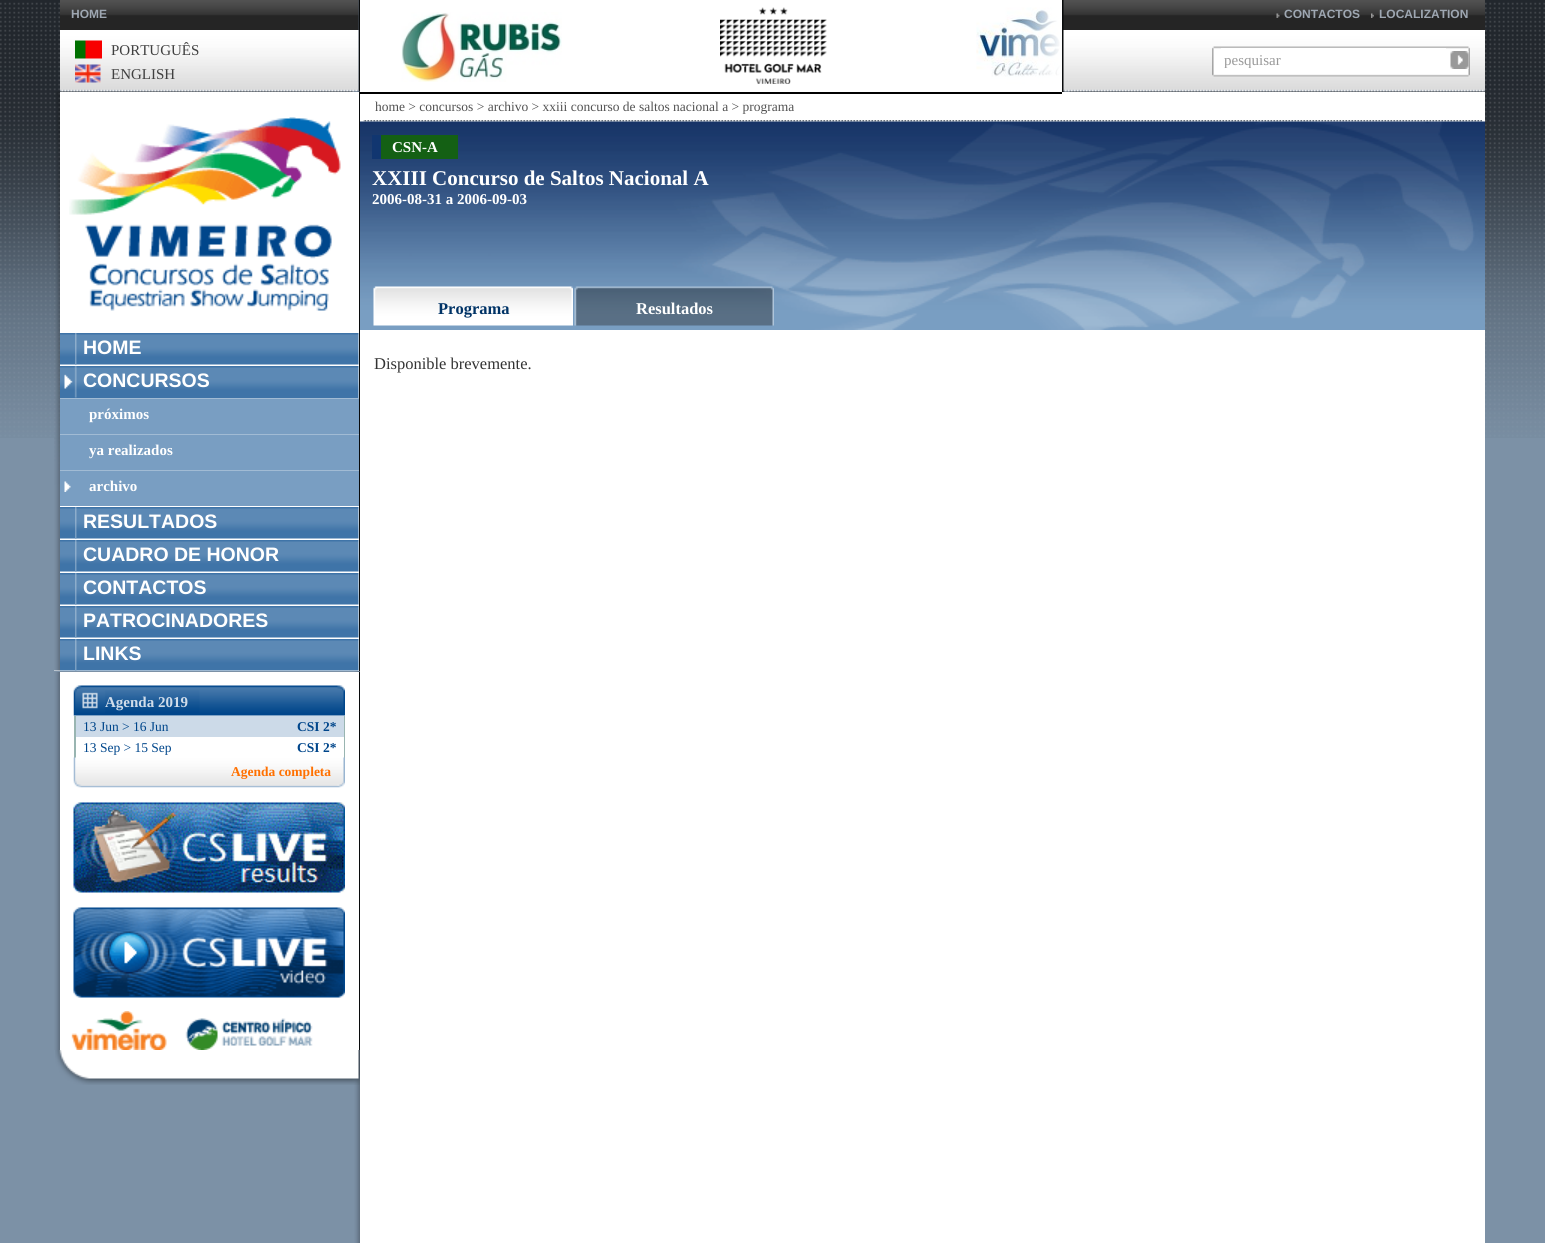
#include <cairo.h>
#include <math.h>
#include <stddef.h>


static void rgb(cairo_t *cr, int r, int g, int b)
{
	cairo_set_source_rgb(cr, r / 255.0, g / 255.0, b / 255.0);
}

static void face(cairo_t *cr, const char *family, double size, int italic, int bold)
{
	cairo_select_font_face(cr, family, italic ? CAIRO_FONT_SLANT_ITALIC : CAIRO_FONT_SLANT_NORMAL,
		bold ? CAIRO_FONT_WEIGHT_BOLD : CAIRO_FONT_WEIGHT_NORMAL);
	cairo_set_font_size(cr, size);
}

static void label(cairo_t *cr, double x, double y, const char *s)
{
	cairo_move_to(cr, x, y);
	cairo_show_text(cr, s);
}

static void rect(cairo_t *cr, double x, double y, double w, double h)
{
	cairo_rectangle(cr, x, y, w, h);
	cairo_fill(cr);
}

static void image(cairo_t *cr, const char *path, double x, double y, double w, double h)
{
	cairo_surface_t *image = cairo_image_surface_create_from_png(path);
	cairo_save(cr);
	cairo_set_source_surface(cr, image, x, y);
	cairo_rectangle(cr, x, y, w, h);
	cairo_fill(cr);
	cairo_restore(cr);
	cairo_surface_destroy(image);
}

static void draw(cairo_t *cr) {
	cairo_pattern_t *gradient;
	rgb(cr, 124, 145, 166);
	cairo_paint(cr);
	image(cr, "image0.png", 0, 0, 1545, 438);
	image(cr, "image1.png", 352, 0, 7, 92);
	rgb(cr, 9, 11, 12);
	rect(cr, 359, 0, 1, 92);
	image(cr, "image2.png", 60, 0, 299, 30);
	face(cr, "Liberation Sans", 12, 0, 1);
	rgb(cr, 158, 167, 178);
	label(cr, 71, 18, "HOME");
	image(cr, "image3.png", 60, 30, 299, 62);
	image(cr, "image4.png", 75, 40, 27, 19);
	face(cr, "Liberation Serif", 15, 0, 0);
	rgb(cr, 64, 64, 64);
	label(cr, 111, 55, "PORTUGUÊS");
	image(cr, "image5.png", 75, 64, 26, 19);
	label(cr, 111, 79, "ENGLISH");
	rgb(cr, 255, 255, 255);
	rect(cr, 360, 0, 702, 92);
	rect(cr, 360, 92, 1125, 1151);
	rgb(cr, 0, 0, 0);
	rect(cr, 360, 92, 702, 2);
	image(cr, "image6.png", 401, 12, 161, 70);
	image(cr, "image7.png", 720, 7, 107, 77);
	image(cr, "image8.png", 976, 7, 86, 77);
	gradient = cairo_pattern_create_linear(435, 46, 360, 46);
	cairo_pattern_add_color_stop_rgba(gradient, 0, 1, 1, 1, 0);
	cairo_pattern_add_color_stop_rgba(gradient, 1, 1, 1, 1, 1);
	cairo_set_source(cr, gradient);
	cairo_pattern_destroy(gradient);
	rect(cr, 401, 16, 32, 65);
	gradient = cairo_pattern_create_linear(987, 46, 1062, 46);
	cairo_pattern_add_color_stop_rgba(gradient, 0, 1, 1, 1, 0);
	cairo_pattern_add_color_stop_rgba(gradient, 1, 1, 1, 1, 1);
	cairo_set_source(cr, gradient);
	cairo_pattern_destroy(gradient);
	rect(cr, 989, 7, 73, 77);
	image(cr, "image9.png", 1064, 91, 6, 1);
	rgb(cr, 9, 11, 12);
	rect(cr, 1062, 0, 2, 92);
	image(cr, "image10.png", 1063, 0, 422, 30);
	image(cr, "image11.png", 1276, 13, 4, 5);
	face(cr, "Liberation Sans", 12, 0, 1);
	rgb(cr, 158, 167, 178);
	label(cr, 1284, 18, "CONTACTOS");
	image(cr, "image12.png", 1371, 13, 3, 5);
	label(cr, 1379, 18, "LOCALIZATION");
	image(cr, "image13.png", 1063, 30, 422, 62);
	image(cr, "image14.png", 1212, 46, 258, 31);
	rgb(cr, 255, 255, 255);
	rect(cr, 1221, 48, 225, 1);
	cairo_save(cr);
	cairo_rectangle(cr, 1224, 51, 219, 17);
	cairo_clip(cr);
	face(cr, "Liberation Serif", 15, 0, 0);
	rgb(cr, 153, 153, 153);
	label(cr, 1224, 65, "pesquisar");
	cairo_restore(cr);
	image(cr, "image15.png", 1450, 51, 19, 18);
	image(cr, "image16.png", 363, 120, 1119, 2);
	face(cr, "Liberation Serif", 13.5, 0, 0);
	rgb(cr, 82, 82, 82);
	label(cr, 375, 111, "home > concursos > archivo > xxiii concurso de saltos nacional a > programa");
	image(cr, "image17.png", 360, 121, 1125, 209);
	rgb(cr, 20, 96, 20);
	rect(cr, 381, 135, 77, 24);
	face(cr, "Liberation Serif", 15, 0, 1);
	rgb(cr, 255, 255, 255);
	label(cr, 392, 152, "CSN-A");
	rgb(cr, 17, 54, 112);
	rect(cr, 372, 135, 9, 24);
	face(cr, "Liberation Serif", 21, 0, 1);
	rgb(cr, 255, 255, 255);
	label(cr, 372, 185, "XXIII Concurso de Saltos Nacional A");
	face(cr, "Liberation Serif", 15, 0, 1);
	label(cr, 372, 204, "2006-08-31 a 2006-09-03");
	image(cr, "image18.png", 373, 286, 200, 40);
	face(cr, "Liberation Serif", 16.5, 0, 1);
	rgb(cr, 0, 51, 102);
	label(cr, 438, 314, "Programa");
	image(cr, "image19.png", 574, 286, 200, 40);
	rgb(cr, 255, 255, 255);
	label(cr, 636, 314, "Resultados");
	face(cr, "Liberation Serif", 16.5, 0, 0);
	rgb(cr, 51, 51, 51);
	label(cr, 374, 369, "Disponible brevemente.");
	image(cr, "image20.png", 354, 91, 6, 1152);
	rgb(cr, 255, 255, 255);
	rect(cr, 54, 92, 305, 579);
	image(cr, "image21.png", 54, 91, 6, 580);
	rgb(cr, 9, 11, 12);
	rect(cr, 359, 92, 1, 579);
	image(cr, "image22.png", 69, 117, 272, 194);
	image(cr, "image23.png", 60, 333, 299, 32);
	image(cr, "image24.png", 75, 333, 2, 32);
	face(cr, "Liberation Sans", 19.5, 0, 1);
	rgb(cr, 255, 255, 255);
	label(cr, 83, 354, "HOME");
	image(cr, "image25.png", 60, 366, 299, 32);
	image(cr, "image26.png", 64, 366, 13, 32);
	label(cr, 83, 387, "CONCURSOS");
	rgb(cr, 161, 187, 212);
	rect(cr, 60, 398, 299, 1);
	rgb(cr, 121, 158, 194);
	rect(cr, 60, 399, 299, 35);
	face(cr, "Liberation Serif", 15, 0, 1);
	rgb(cr, 255, 255, 255);
	label(cr, 89, 419, "próximos");
	rgb(cr, 161, 187, 212);
	rect(cr, 60, 434, 299, 1);
	rgb(cr, 121, 158, 194);
	rect(cr, 60, 435, 299, 35);
	rgb(cr, 255, 255, 255);
	label(cr, 89, 455, "ya realizados");
	rgb(cr, 161, 187, 212);
	rect(cr, 60, 470, 299, 1);
	rgb(cr, 121, 158, 194);
	rect(cr, 60, 471, 299, 35);
	image(cr, "image27.png", 64, 481, 7, 11);
	rgb(cr, 255, 255, 255);
	label(cr, 89, 491, "archivo");
	image(cr, "image23.png", 60, 507, 299, 32);
	image(cr, "image24.png", 75, 507, 2, 32);
	face(cr, "Liberation Sans", 19.5, 0, 1);
	label(cr, 83, 528, "RESULTADOS");
	image(cr, "image23.png", 60, 540, 299, 32);
	image(cr, "image24.png", 75, 540, 2, 32);
	label(cr, 83, 561, "CUADRO DE HONOR");
	image(cr, "image23.png", 60, 573, 299, 32);
	image(cr, "image24.png", 75, 573, 2, 32);
	label(cr, 83, 594, "CONTACTOS");
	image(cr, "image23.png", 60, 606, 299, 32);
	image(cr, "image24.png", 75, 606, 2, 32);
	label(cr, 83, 627, "PATROCINADORES");
	image(cr, "image23.png", 60, 639, 299, 32);
	image(cr, "image24.png", 75, 639, 2, 32);
	label(cr, 83, 660, "LINKS");
	rect(cr, 60, 672, 299, 378);
	image(cr, "image28.png", 54, 672, 6, 378);
	rgb(cr, 9, 11, 12);
	rect(cr, 359, 672, 1, 378);
	image(cr, "image29.png", 73, 685, 272, 31);
	face(cr, "Liberation Serif", 15, 0, 1);
	rgb(cr, 209, 221, 234);
	label(cr, 105, 707, "Agenda 2019");
	rgb(cr, 204, 218, 232);
	rect(cr, 76, 716, 268, 21);
	rgb(cr, 153, 181, 177);
	rect(cr, 344, 716, 1, 42);
	rect(cr, 74, 716, 2, 42);
	face(cr, "Liberation Serif", 13.5, 0, 0);
	rgb(cr, 0, 70, 139);
	label(cr, 83, 731, "13 Jun > 16 Jun");
	face(cr, "Liberation Serif", 13.5, 0, 1);
	label(cr, 297, 731, "CSI 2*");
	face(cr, "Liberation Serif", 13.5, 0, 0);
	label(cr, 83, 752, "13 Sep > 15 Sep");
	face(cr, "Liberation Serif", 13.5, 0, 1);
	label(cr, 297, 752, "CSI 2*");
	image(cr, "image30.png", 73, 757, 272, 31);
	rgb(cr, 255, 112, 0);
	label(cr, 231, 776, "Agenda completa");
	image(cr, "image31.png", 73, 802, 272, 91);
	image(cr, "image32.png", 73, 907, 272, 91);
	image(cr, "image33.png", 71, 1011, 96, 39);
	image(cr, "image34.png", 185, 1018, 128, 32);
	image(cr, "image35.png", 55, 1050, 305, 35);
}

int main(void) {
	cairo_surface_t *surface = cairo_image_surface_create(CAIRO_FORMAT_RGB24, 1545, 1243);
	cairo_t *cr = cairo_create(surface);
	cairo_font_options_t *options = cairo_font_options_create();
	cairo_font_options_set_hint_metrics(options, CAIRO_HINT_METRICS_OFF);
	cairo_font_options_set_hint_style(options, CAIRO_HINT_STYLE_NONE);
	cairo_set_font_options(cr, options);
	cairo_set_miter_limit(cr, 4);
	draw(cr);
	cairo_surface_write_to_png(surface, "render.png");
	cairo_font_options_destroy(options);
	cairo_destroy(cr);
	cairo_surface_destroy(surface);
	return 0;
}
